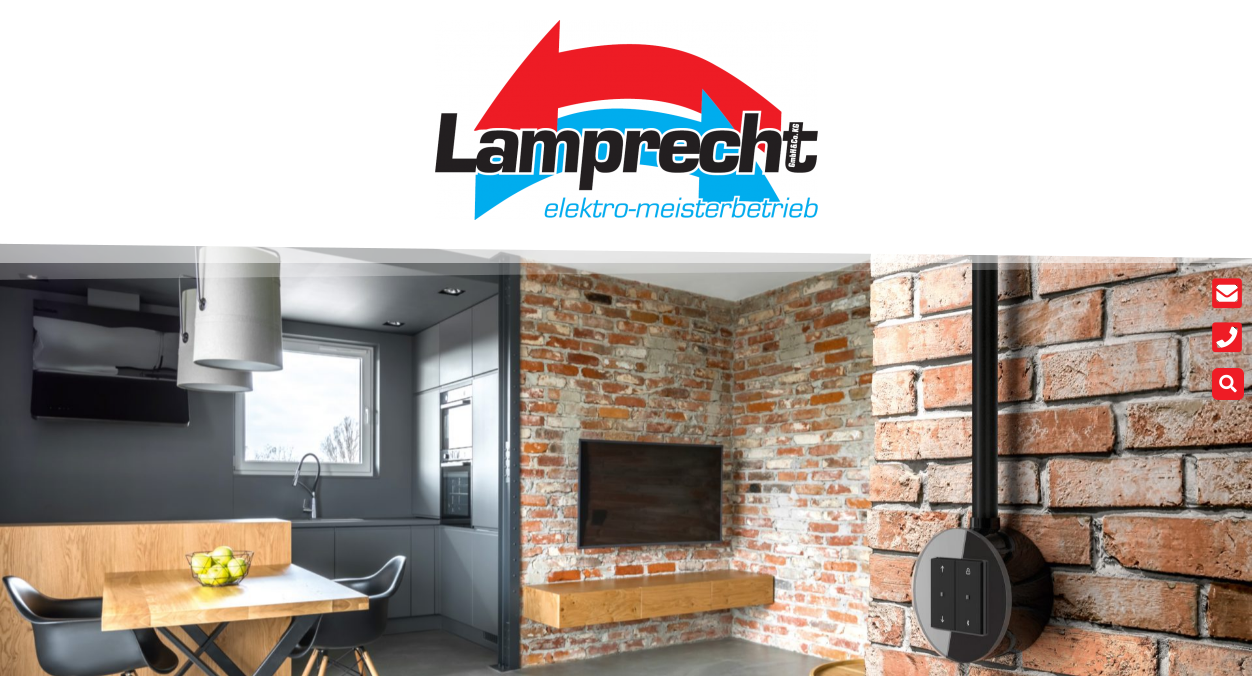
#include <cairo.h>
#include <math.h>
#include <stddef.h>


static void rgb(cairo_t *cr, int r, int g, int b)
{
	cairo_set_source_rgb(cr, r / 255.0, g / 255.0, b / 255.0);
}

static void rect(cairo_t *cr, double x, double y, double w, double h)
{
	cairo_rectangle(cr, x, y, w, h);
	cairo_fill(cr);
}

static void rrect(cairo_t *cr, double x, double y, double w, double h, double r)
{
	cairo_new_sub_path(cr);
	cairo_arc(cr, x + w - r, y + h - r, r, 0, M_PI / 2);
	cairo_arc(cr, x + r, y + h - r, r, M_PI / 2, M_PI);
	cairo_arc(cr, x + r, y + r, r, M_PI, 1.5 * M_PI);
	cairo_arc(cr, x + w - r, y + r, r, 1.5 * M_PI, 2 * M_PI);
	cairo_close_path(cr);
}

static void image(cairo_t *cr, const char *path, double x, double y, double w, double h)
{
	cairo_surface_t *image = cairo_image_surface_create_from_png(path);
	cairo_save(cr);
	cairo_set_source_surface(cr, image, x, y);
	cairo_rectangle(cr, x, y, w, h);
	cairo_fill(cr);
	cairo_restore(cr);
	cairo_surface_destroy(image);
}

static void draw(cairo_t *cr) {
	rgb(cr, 255, 255, 255);
	cairo_paint(cr);
	image(cr, "image0.png", 435, 20, 383, 200);
	image(cr, "image1.png", 0, 243, 1252, 433);
	rgb(cr, 255, 255, 255);
	cairo_new_path(cr);
	cairo_move_to(cr, -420, 239);
	cairo_line_to(cr, 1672, 239);
	cairo_line_to(cr, 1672, 263);
	cairo_close_path(cr);
	cairo_fill(cr);
	cairo_set_source_rgba(cr, 1, 1, 1, 0.5);
	rect(cr, 0, 243, 1252, 20);
	cairo_set_source_rgba(cr, 1, 1, 1, 0.25);
	cairo_new_path(cr);
	cairo_move_to(cr, 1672, 239);
	cairo_line_to(cr, -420, 239);
	cairo_line_to(cr, -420, 284);
	cairo_line_to(cr, 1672, 263);
	cairo_close_path(cr);
	cairo_fill(cr);
	image(cr, "image2.png", 1212, 278, 30, 31);
	image(cr, "image3.png", 1212, 322, 30, 31);
	rgb(cr, 238, 28, 37);
	rrect(cr, 1212, 368, 32, 32, 6);
	cairo_fill(cr);
	image(cr, "image4.png", 1219, 374, 18, 19);
}

int main(void) {
	cairo_surface_t *surface = cairo_image_surface_create(CAIRO_FORMAT_RGB24, 1252, 676);
	cairo_t *cr = cairo_create(surface);
	cairo_font_options_t *options = cairo_font_options_create();
	cairo_font_options_set_hint_metrics(options, CAIRO_HINT_METRICS_OFF);
	cairo_font_options_set_hint_style(options, CAIRO_HINT_STYLE_NONE);
	cairo_set_font_options(cr, options);
	cairo_set_miter_limit(cr, 4);
	draw(cr);
	cairo_surface_write_to_png(surface, "render.png");
	cairo_font_options_destroy(options);
	cairo_destroy(cr);
	cairo_surface_destroy(surface);
	return 0;
}
